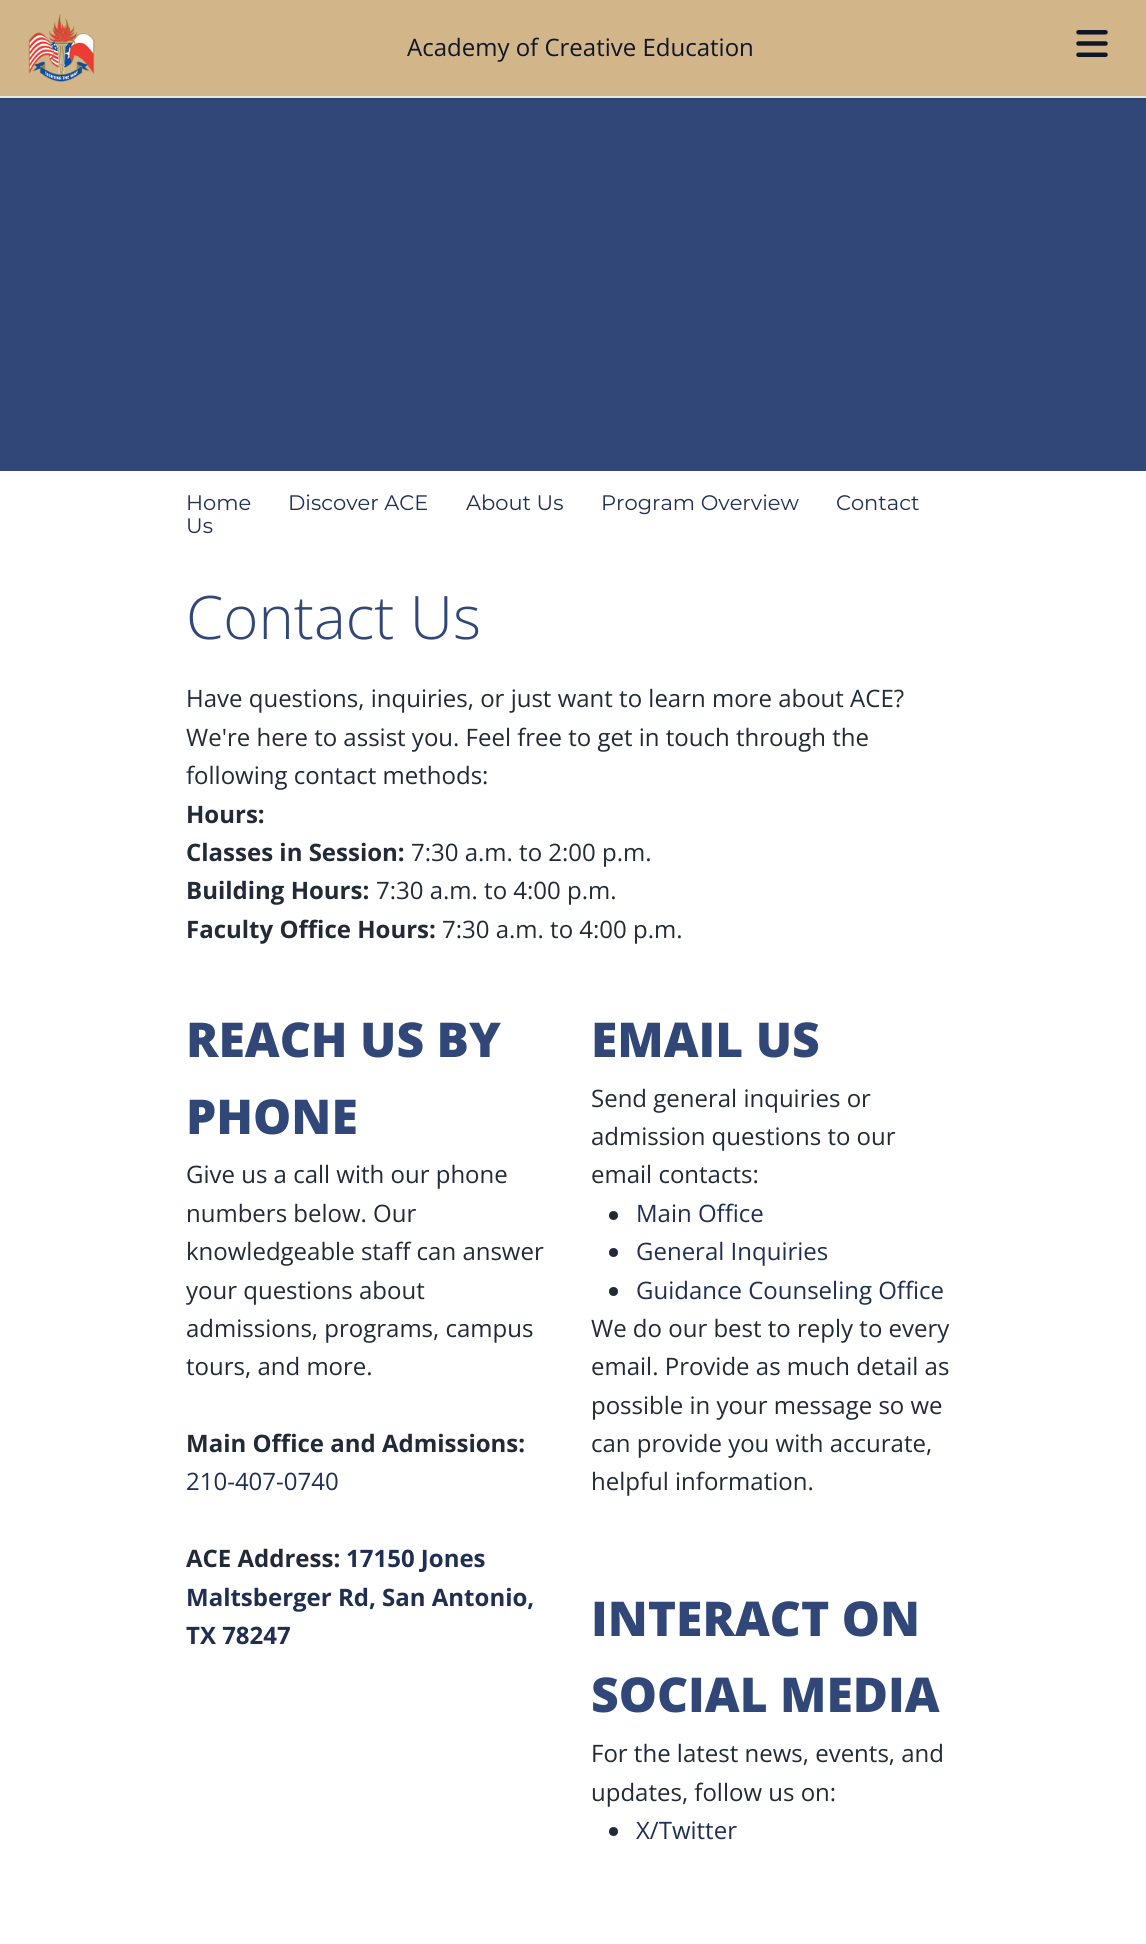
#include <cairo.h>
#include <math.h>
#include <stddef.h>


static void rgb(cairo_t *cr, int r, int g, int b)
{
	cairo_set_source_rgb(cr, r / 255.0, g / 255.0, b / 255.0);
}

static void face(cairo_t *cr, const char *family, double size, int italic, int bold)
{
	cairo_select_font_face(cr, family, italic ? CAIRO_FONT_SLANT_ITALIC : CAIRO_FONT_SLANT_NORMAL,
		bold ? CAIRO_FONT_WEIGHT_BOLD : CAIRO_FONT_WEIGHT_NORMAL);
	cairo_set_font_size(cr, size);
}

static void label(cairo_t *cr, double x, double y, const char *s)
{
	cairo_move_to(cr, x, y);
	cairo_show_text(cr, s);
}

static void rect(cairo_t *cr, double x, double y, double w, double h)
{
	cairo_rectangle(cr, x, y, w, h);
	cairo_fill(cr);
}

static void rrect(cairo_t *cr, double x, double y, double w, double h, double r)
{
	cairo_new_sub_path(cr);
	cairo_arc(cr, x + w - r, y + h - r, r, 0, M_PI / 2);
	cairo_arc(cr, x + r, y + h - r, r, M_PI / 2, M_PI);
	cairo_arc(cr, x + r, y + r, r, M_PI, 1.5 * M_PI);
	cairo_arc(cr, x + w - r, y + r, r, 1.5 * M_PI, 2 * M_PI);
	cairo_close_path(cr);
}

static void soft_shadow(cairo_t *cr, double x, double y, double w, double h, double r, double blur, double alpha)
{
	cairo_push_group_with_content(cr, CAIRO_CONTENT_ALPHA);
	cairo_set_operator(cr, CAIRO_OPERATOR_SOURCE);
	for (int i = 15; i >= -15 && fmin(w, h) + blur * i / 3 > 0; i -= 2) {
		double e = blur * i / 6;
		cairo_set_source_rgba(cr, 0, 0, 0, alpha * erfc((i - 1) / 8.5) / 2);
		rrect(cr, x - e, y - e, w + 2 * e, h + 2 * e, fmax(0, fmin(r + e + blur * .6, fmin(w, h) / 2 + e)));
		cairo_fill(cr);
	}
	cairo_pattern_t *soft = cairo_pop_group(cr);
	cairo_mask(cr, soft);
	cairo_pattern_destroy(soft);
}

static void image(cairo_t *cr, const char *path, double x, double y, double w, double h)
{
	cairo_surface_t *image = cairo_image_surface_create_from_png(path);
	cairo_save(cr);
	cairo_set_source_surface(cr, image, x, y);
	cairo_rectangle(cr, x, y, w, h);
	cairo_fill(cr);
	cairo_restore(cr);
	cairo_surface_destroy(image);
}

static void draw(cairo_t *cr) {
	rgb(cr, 255, 255, 255);
	cairo_paint(cr);
	rgb(cr, 48, 71, 119);
	rect(cr, 0, 98, 1146, 373);
	rgb(cr, 0, 0, 0);
	soft_shadow(cr, 2, 3, 1143, 95, 0, 1.5, 0.1);
	soft_shadow(cr, 0, 2, 1146, 97, 0, 2, 0.1);
	rgb(cr, 210, 181, 137);
	rect(cr, 0, 0, 1146, 96);
	rgb(cr, 229, 231, 235);
	rect(cr, 0, 96, 1146, 2);
	image(cr, "image0.png", 28, 14, 67, 68);
	face(cr, "Open Sans", 24, 0, 0);
	rgb(cr, 15, 22, 40);
	label(cr, 407, 56, "Academy of Creative Education");
	image(cr, "image1.png", 1076, 30, 32, 27);
	face(cr, "Montserrat", 21, 0, 0);
	rgb(cr, 32, 46, 81);
	label(cr, 186, 510, "Home");
	label(cr, 288, 510, "Discover ACE");
	label(cr, 466, 510, "About Us");
	label(cr, 601, 510, "Program Overview");
	label(cr, 836, 510, "Contact");
	label(cr, 186, 533, "Us");
	face(cr, "Open Sans Light", 60, 0, 0);
	rgb(cr, 48, 71, 119);
	label(cr, 186, 639, "Contact Us");
	face(cr, "Open Sans", 24, 0, 0);
	rgb(cr, 34, 42, 56);
	label(cr, 186, 707, "Have questions, inquiries, or just want to learn more about ACE?");
	label(cr, 186, 746, "We're here to assist you. Feel free to get in touch through the");
	label(cr, 186, 784, "following contact methods:");
	face(cr, "Open Sans", 24, 0, 1);
	label(cr, 186, 823, "Hours:");
	label(cr, 186, 861, "Classes in Session:");
	face(cr, "Open Sans", 24, 0, 0);
	label(cr, 411, 861, "7:30 a.m. to 2:00 p.m.");
	face(cr, "Open Sans", 24, 0, 1);
	label(cr, 186, 899, "Building Hours:");
	face(cr, "Open Sans", 24, 0, 0);
	label(cr, 376, 899, "7:30 a.m. to 4:00 p.m.");
	face(cr, "Open Sans", 24, 0, 1);
	label(cr, 186, 938, "Faculty Office Hours:");
	face(cr, "Open Sans", 24, 0, 0);
	label(cr, 442, 938, "7:30 a.m. to 4:00 p.m.");
	face(cr, "Open Sans ExtraBold", 48, 0, 0);
	rgb(cr, 48, 71, 119);
	label(cr, 186, 1057, "REACH US BY");
	label(cr, 186, 1134, "PHONE");
	face(cr, "Open Sans", 24, 0, 0);
	rgb(cr, 34, 42, 56);
	label(cr, 186, 1183, "Give us a call with our phone");
	label(cr, 186, 1222, "numbers below. Our");
	label(cr, 186, 1260, "knowledgeable staff can answer");
	label(cr, 186, 1299, "your questions about");
	label(cr, 186, 1337, "admissions, programs, campus");
	label(cr, 186, 1375, "tours, and more.");
	face(cr, "Open Sans", 24, 0, 1);
	label(cr, 186, 1452, "Main Office and Admissions:");
	face(cr, "Open Sans", 24, 0, 0);
	rgb(cr, 32, 46, 81);
	label(cr, 186, 1490, "210-407-0740");
	face(cr, "Open Sans", 24, 0, 1);
	rgb(cr, 34, 42, 56);
	label(cr, 186, 1567, "ACE Address:");
	rgb(cr, 32, 46, 81);
	label(cr, 346, 1567, "17150 Jones");
	label(cr, 186, 1606, "Maltsberger Rd, San Antonio,");
	label(cr, 186, 1644, "TX 78247");
	face(cr, "Open Sans ExtraBold", 48, 0, 0);
	rgb(cr, 48, 71, 119);
	label(cr, 591, 1057, "EMAIL US");
	face(cr, "Open Sans", 24, 0, 0);
	rgb(cr, 34, 42, 56);
	label(cr, 591, 1107, "Send general inquiries or");
	label(cr, 591, 1145, "admission questions to our");
	label(cr, 591, 1183, "email contacts:");
	cairo_new_path(cr);
	cairo_arc(cr, 613.5, 1215.5, 4.5, 0, 2 * M_PI);
	cairo_fill(cr);
	rgb(cr, 32, 46, 81);
	label(cr, 636, 1222, "Main Office");
	rgb(cr, 34, 42, 56);
	cairo_new_path(cr);
	cairo_arc(cr, 613.5, 1252.5, 4.5, 0, 2 * M_PI);
	cairo_fill(cr);
	rgb(cr, 32, 46, 81);
	label(cr, 636, 1260, "General Inquiries");
	rgb(cr, 34, 42, 56);
	cairo_new_path(cr);
	cairo_arc(cr, 613.5, 1291.5, 4.5, 0, 2 * M_PI);
	cairo_fill(cr);
	rgb(cr, 32, 46, 81);
	label(cr, 636, 1299, "Guidance Counseling Office");
	rgb(cr, 34, 42, 56);
	label(cr, 591, 1337, "We do our best to reply to every");
	label(cr, 591, 1375, "email. Provide as much detail as");
	label(cr, 591, 1414, "possible in your message so we");
	label(cr, 591, 1452, "can provide you with accurate,");
	label(cr, 591, 1490, "helpful information.");
	face(cr, "Open Sans ExtraBold", 48, 0, 0);
	rgb(cr, 48, 71, 119);
	label(cr, 591, 1636, "INTERACT ON");
	label(cr, 591, 1712, "SOCIAL MEDIA");
	face(cr, "Open Sans", 24, 0, 0);
	rgb(cr, 34, 42, 56);
	label(cr, 591, 1762, "For the latest news, events, and");
	label(cr, 591, 1801, "updates, follow us on:");
	cairo_new_path(cr);
	cairo_arc(cr, 613.5, 1831.5, 4.5, 0, 2 * M_PI);
	cairo_fill(cr);
	rgb(cr, 32, 46, 81);
	label(cr, 636, 1839, "X/Twitter");
}

int main(void) {
	cairo_surface_t *surface = cairo_image_surface_create(CAIRO_FORMAT_RGB24, 1146, 1944);
	cairo_t *cr = cairo_create(surface);
	cairo_font_options_t *options = cairo_font_options_create();
	cairo_font_options_set_hint_metrics(options, CAIRO_HINT_METRICS_OFF);
	cairo_font_options_set_hint_style(options, CAIRO_HINT_STYLE_NONE);
	cairo_set_font_options(cr, options);
	cairo_set_miter_limit(cr, 4);
	draw(cr);
	cairo_surface_write_to_png(surface, "render.png");
	cairo_font_options_destroy(options);
	cairo_destroy(cr);
	cairo_surface_destroy(surface);
	return 0;
}
